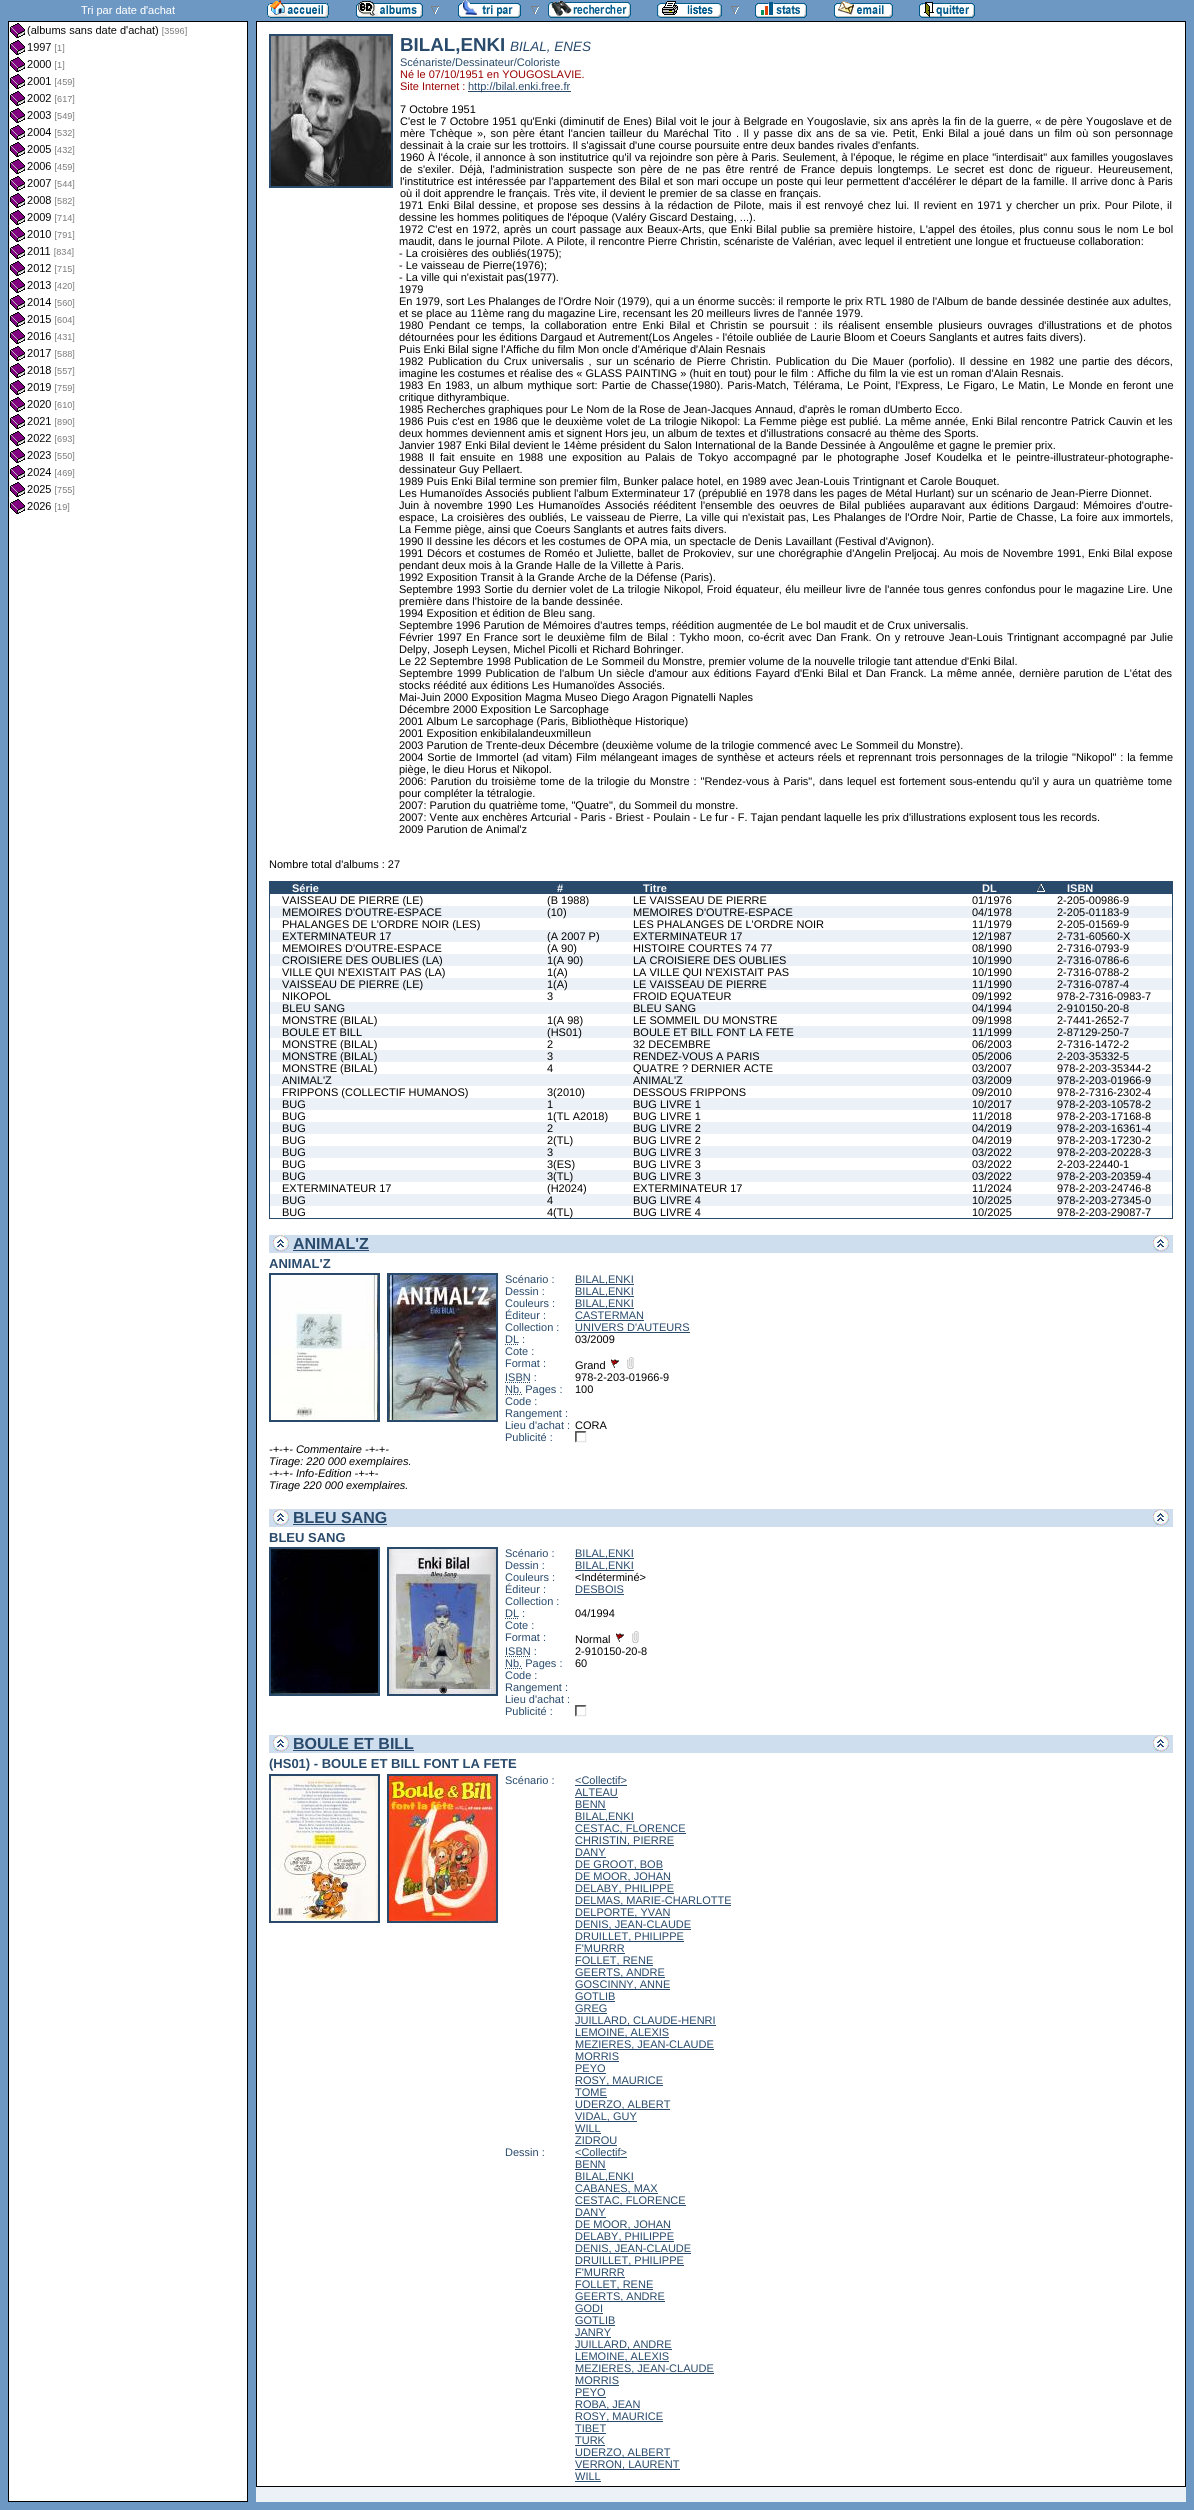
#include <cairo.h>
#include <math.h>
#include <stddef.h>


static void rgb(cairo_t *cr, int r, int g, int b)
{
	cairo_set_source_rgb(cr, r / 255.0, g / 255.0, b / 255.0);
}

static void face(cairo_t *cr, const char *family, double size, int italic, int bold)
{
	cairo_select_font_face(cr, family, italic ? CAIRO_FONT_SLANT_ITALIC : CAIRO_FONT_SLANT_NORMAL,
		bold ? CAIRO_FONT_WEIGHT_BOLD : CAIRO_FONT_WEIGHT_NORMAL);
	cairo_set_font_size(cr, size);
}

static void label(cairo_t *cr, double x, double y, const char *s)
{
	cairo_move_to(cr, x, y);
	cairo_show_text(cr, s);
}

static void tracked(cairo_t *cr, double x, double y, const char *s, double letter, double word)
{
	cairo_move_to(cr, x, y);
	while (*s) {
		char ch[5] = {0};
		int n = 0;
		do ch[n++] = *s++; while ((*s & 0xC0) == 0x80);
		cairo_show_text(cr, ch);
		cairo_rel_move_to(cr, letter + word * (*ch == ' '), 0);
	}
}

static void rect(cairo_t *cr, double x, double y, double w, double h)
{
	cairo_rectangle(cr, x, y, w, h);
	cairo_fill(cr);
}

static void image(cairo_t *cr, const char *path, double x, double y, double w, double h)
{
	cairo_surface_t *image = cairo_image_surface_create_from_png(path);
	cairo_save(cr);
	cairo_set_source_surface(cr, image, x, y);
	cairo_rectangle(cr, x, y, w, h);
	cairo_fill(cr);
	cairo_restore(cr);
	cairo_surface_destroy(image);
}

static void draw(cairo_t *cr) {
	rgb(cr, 109, 152, 195);
	cairo_paint(cr);
	image(cr, "image0.png", 8, 6, 240, 2496);
	image(cr, "image1.png", 267, 0, 62, 18);
	image(cr, "image2.png", 431, 6, 8, 8);
	image(cr, "image3.png", 356, 1, 67, 17);
	image(cr, "image2.png", 531, 6, 8, 8);
	image(cr, "image4.png", 458, 0, 63, 18);
	image(cr, "image5.png", 548, 1, 83, 17);
	image(cr, "image2.png", 731, 6, 8, 8);
	image(cr, "image6.png", 657, 1, 65, 17);
	image(cr, "image7.png", 755, 2, 52, 16);
	image(cr, "image8.png", 834, 1, 59, 17);
	image(cr, "image9.png", 919, 2, 56, 16);
	rgb(cr, 255, 255, 255);
	cairo_rectangle(cr, 256.5, 21.5, 929, 2465);
	cairo_fill_preserve(cr);
	rgb(cr, 0, 0, 0);
	cairo_set_line_width(cr, 1);
	cairo_stroke(cr);
	cairo_rectangle(cr, 270, 35, 122, 152);
	rgb(cr, 41, 74, 107);
	cairo_set_line_width(cr, 2);
	cairo_stroke(cr);
	image(cr, "image10.png", 271, 36, 120, 150);
	face(cr, "Liberation Sans", 18.75, 0, 1);
	label(cr, 400, 51, "BILAL,ENKI");
	face(cr, "Liberation Sans", 13.5, 1, 0);
	label(cr, 510, 51, "BILAL, ENES");
	face(cr, "Liberation Sans", 11, 0, 0);
	label(cr, 400, 66, "Scénariste/Dessinateur/Coloriste");
	rgb(cr, 153, 0, 0);
	label(cr, 400, 78, "Né le 07/10/1951 en YOUGOSLAVIE.");
	label(cr, 400, 90, "Site Internet :");
	rgb(cr, 41, 74, 107);
	rect(cr, 468, 91, 103, 1);
	label(cr, 468, 90, "http://bilal.enki.free.fr");
	rgb(cr, 0, 0, 0);
	label(cr, 400, 113, "7 Octobre 1951");
	tracked(cr, 400, 125, "C'est le 7 Octobre 1951 qu'Enki (diminutif de Enes) Bilal voit le jour à Belgrade en Yougoslavie, six ans après la fin de la guerre, « de père Yougoslave et de", 0, 0.4);
	tracked(cr, 400, 137, "mère Tchèque », son père étant l'ancien tailleur du Maréchal Tito . Il y passe dix ans de sa vie. Petit, Enki Bilal a joué dans un film où son personnage", 0, 1.45);
	label(cr, 400, 149, "dessinait à la craie sur les trottoirs. Il s'agissait d'une course poursuite entre deux bandes rivales d'enfants.");
	tracked(cr, 400, 161, "1960 À l'école, il annonce à son institutrice qu'il va rejoindre son père à Paris. Seulement, à l'époque, le régime en place \"interdisait\" aux familles yougoslaves", 0, 0.2);
	tracked(cr, 400, 173, "de s'exiler. Déjà, l'administration suspecte son père de ne pas être rentré de France depuis longtemps. Le secret est donc de rigueur. Heureusement,", 0, 2.1);
	tracked(cr, 400, 185, "l'institutrice est intéressée par l'appartement des Bilal et son mari occupe un poste qui leur permettent d'accélérer le départ de la famille. Il arrive donc à Paris", 0, 0.3);
	label(cr, 400, 197, "où il doit apprendre le français. Très vite, il devient le premier de sa classe en français.");
	tracked(cr, 399, 209, "1971 Enki Bilal dessine, et propose ses dessins à la rédaction de Pilote, mais il est renvoyé chez lui. Il revient en 1971 y chercher un prix. Pour Pilote, il", 0, 1.25);
	label(cr, 399, 221, "dessine les hommes politiques de l'époque (Valéry Giscard Destaing, ...).");
	tracked(cr, 399, 233, "1972 C'est en 1972, après un court passage aux Beaux-Arts, que Enki Bilal publie sa première histoire, L'appel des étoiles, plus connu sous le nom Le bol", 0, 0.9);
	label(cr, 399, 245, "maudit, dans le journal Pilote. A Pilote, il rencontre Pierre Christin, scénariste de Valérian, avec lequel il entretient une longue et fructueuse collaboration:");
	label(cr, 399, 257, "- La croisières des oubliés(1975);");
	label(cr, 399, 269, "- Le vaisseau de Pierre(1976);");
	label(cr, 399, 281, "- La ville qui n'existait pas(1977).");
	label(cr, 399, 293, "1979");
	label(cr, 399, 305, "En 1979, sort Les Phalanges de l'Ordre Noir (1979), qui a un énorme succès: il remporte le prix RTL 1980 de l'Album de bande dessinée destinée aux adultes,");
	label(cr, 399, 317, "et se place au 11ème rang du magazine Lire, recensant les 20 meilleurs livres de l'année 1979.");
	tracked(cr, 399, 329, "1980 Pendant ce temps, la collaboration entre Enki Bilal et Christin se poursuit : ils réalisent ensemble plusieurs ouvrages d'illustrations et de photos", 0, 2.3);
	label(cr, 399, 341, "détournées pour les éditions Dargaud et Autrement(Los Angeles - l'étoile oubliée de Laurie Bloom et Coeurs Sanglants et autres faits divers).");
	label(cr, 399, 353, "Puis Enki Bilal signe l'Affiche du film Mon oncle d'Amérique d'Alain Resnais");
	tracked(cr, 399, 365, "1982 Publication du Crux universalis , sur un scénario de Pierre Christin. Publication du Die Mauer (porfolio). Il dessine en 1982 une partie des décors,", 0, 1.7);
	label(cr, 399, 377, "imagine les costumes et réalise des « GLASS PAINTING » (huit en tout) pour le film : Affiche du film la vie est un roman d'Alain Resnais.");
	tracked(cr, 399, 389, "1983 En 1983, un album mythique sort: Partie de Chasse(1980). Paris-Match, Télérama, Le Point, l'Express, Le Figaro, Le Matin, Le Monde en feront une", 0, 1.1);
	label(cr, 399, 401, "critique dithyrambique.");
	label(cr, 399, 413, "1985 Recherches graphiques pour Le Nom de la Rose de Jean-Jacques Annaud, d'après le roman dUmberto Ecco.");
	tracked(cr, 399, 425, "1986 Puis c'est en 1986 que le deuxième volet de La trilogie Nikopol: La Femme piège est publié. La même année, Enki Bilal rencontre Patrick Cauvin et les", 0, 0.45);
	label(cr, 399, 437, "deux hommes deviennent amis et signent Hors jeu, un album de textes et d'illustrations consacré au thème des Sports.");
	label(cr, 399, 449, "Janvier 1987 Enki Bilal devient le 14ème président du Salon International de la Bande Dessinée à Angoulême et gagne le premier prix.");
	tracked(cr, 399, 461, "1988 Il fait ensuite en 1988 une exposition au Palais de Tokyo accompagné par le photographe Josef Koudelka et le peintre-illustrateur-photographe-", 0, 2.4);
	label(cr, 399, 473, "dessinateur Guy Pellaert.");
	label(cr, 399, 485, "1989 Puis Enki Bilal termine son premier film, Bunker palace hotel, en 1989 avec Jean-Louis Trintignant et Carole Bouquet.");
	label(cr, 399, 497, "Les Humanoïdes Associés publient l'album Exterminateur 17 (prépublié en 1978 dans les pages de Métal Hurlant) sur un scénario de Jean-Pierre Dionnet.");
	tracked(cr, 399, 509, "Juin à novembre 1990 Les Humanoïdes Associés rééditent l'ensemble des oeuvres de Bilal publiées auparavant aux éditions Dargaud: Mémoires d'outre-", 0, 1.3);
	tracked(cr, 399, 521, "espace, La croisières des oubliés, Le vaisseau de Pierre, La ville qui n'existait pas, Les Phalanges de l'Ordre Noir, Partie de Chasse, La foire aux immortels,", 0, 0.55);
	label(cr, 399, 533, "La Femme piège, ainsi que Coeurs Sanglants et autres faits divers.");
	label(cr, 399, 545, "1990 Il dessine les décors et les costumes de OPA mia, un spectacle de Denis Lavaillant (Festival d'Avignon).");
	tracked(cr, 399, 557, "1991 Décors et costumes de Roméo et Juliette, ballet de Prokoviev, sur une chorégraphie d'Angelin Preljocaj. Au mois de Novembre 1991, Enki Bilal expose", 0, 0.45);
	label(cr, 399, 569, "pendant deux mois à la Grande Halle de la Villette à Paris.");
	label(cr, 399, 581, "1992 Exposition Transit à la Grande Arche de la Défense (Paris).");
	tracked(cr, 399, 593, "Septembre 1993 Sortie du dernier volet de La trilogie Nikopol, Froid équateur, élu meilleur livre de l'année tous genres confondus pour le magazine Lire. Une", 0, 0.4);
	label(cr, 399, 605, "première dans l'histoire de la bande dessinée.");
	label(cr, 399, 617, "1994 Exposition et édition de Bleu sang.");
	label(cr, 399, 629, "Septembre 1996 Parution de Mémoires d'autres temps, réédition augmentée de Le bol maudit et de Crux universalis.");
	tracked(cr, 399, 641, "Février 1997 En France sort le deuxième film de Bilal : Tykho moon, co-écrit avec Dan Frank. On y retrouve Jean-Louis Trintignant accompagné par Julie", 0, 1.15);
	label(cr, 399, 653, "Delpy, Joseph Leysen, Michel Picolli et Richard Bohringer.");
	label(cr, 399, 665, "Le 22 Septembre 1998 Publication de Le Sommeil du Monstre, premier volume de la nouvelle trilogie tant attendue d'Enki Bilal.");
	tracked(cr, 399, 677, "Septembre 1999 Publication de l'album Un siècle d'amour aux éditions Fayard d'Enki Bilal et Dan Franck. La même année, dernière parution de L'état des", 0, 1);
	label(cr, 399, 689, "stocks réédité aux éditions Les Humanoïdes Associés.");
	label(cr, 399, 701, "Mai-Juin 2000 Exposition Magma Museo Diego Aragon Pignatelli Naples");
	label(cr, 399, 713, "Décembre 2000 Exposition Le Sarcophage");
	label(cr, 399, 725, "2001 Album Le sarcophage (Paris, Bibliothèque Historique)");
	label(cr, 399, 737, "2001 Exposition enkibilalandeuxmilleun");
	label(cr, 399, 749, "2003 Parution de Trente-deux Décembre (deuxième volume de la trilogie commencé avec Le Sommeil du Monstre).");
	tracked(cr, 399, 761, "2004 Sortie de Immortel (ad vitam) Film mélangeant images de synthèse et acteurs réels et reprennant trois personnages de la trilogie \"Nikopol\" : la femme", 0, 0.75);
	label(cr, 399, 773, "piège, le dieu Horus et Nikopol.");
	tracked(cr, 399, 785, "2006: Parution du troisième tome de la trilogie du Monstre : \"Rendez-vous à Paris\", dans lequel est fortement sous-entendu qu'il y aura un quatrième tome", 0, 0.9);
	label(cr, 399, 797, "pour compléter la tétralogie.");
	label(cr, 399, 809, "2007: Parution du quatrième tome, \"Quatre\", du Sommeil du monstre.");
	label(cr, 399, 821, "2007: Vente aux enchères Artcurial - Paris - Briest - Poulain - Le fur - F. Tajan pendant laquelle les prix d'illustrations explosent tous les records.");
	label(cr, 399, 833, "2009 Parution de Animal'z");
	label(cr, 269, 868, "Nombre total d'albums : 27");
	cairo_rectangle(cr, 269.5, 881.5, 903, 337);
	rgb(cr, 41, 74, 107);
	cairo_set_line_width(cr, 1);
	cairo_stroke(cr);
	rect(cr, 270, 882, 902, 12);
	face(cr, "Liberation Sans", 11, 0, 1);
	rgb(cr, 255, 255, 255);
	label(cr, 292, 892, "Série");
	label(cr, 557, 892, "#");
	label(cr, 643, 892, "Titre");
	image(cr, "image11.png", 1037, 884, 8, 8);
	label(cr, 982, 892, "DL");
	label(cr, 1067, 892, "ISBN");
	rgb(cr, 235, 241, 247);
	rect(cr, 270, 906, 902, 12);
	face(cr, "Liberation Sans", 11, 0, 0);
	rgb(cr, 0, 0, 0);
	label(cr, 282, 904, "VAISSEAU DE PIERRE (LE)");
	label(cr, 547, 904, "(B 1988)");
	label(cr, 633, 904, "LE VAISSEAU DE PIERRE");
	label(cr, 972, 904, "01/1976");
	label(cr, 1057, 904, "2-205-00986-9");
	label(cr, 282, 916, "MEMOIRES D'OUTRE-ESPACE");
	label(cr, 547, 916, "(10)");
	label(cr, 633, 916, "MEMOIRES D'OUTRE-ESPACE");
	label(cr, 972, 916, "04/1978");
	label(cr, 1057, 916, "2-205-01183-9");
	rgb(cr, 235, 241, 247);
	rect(cr, 270, 930, 902, 12);
	rgb(cr, 0, 0, 0);
	label(cr, 282, 928, "PHALANGES DE L'ORDRE NOIR (LES)");
	label(cr, 633, 928, "LES PHALANGES DE L'ORDRE NOIR");
	label(cr, 972, 928, "11/1979");
	label(cr, 1057, 928, "2-205-01569-9");
	label(cr, 282, 940, "EXTERMINATEUR 17");
	label(cr, 547, 940, "(A 2007 P)");
	label(cr, 633, 940, "EXTERMINATEUR 17");
	label(cr, 972, 940, "12/1987");
	label(cr, 1057, 940, "2-731-60560-X");
	label(cr, 282, 952, "MEMOIRES D'OUTRE-ESPACE");
	rgb(cr, 235, 241, 247);
	rect(cr, 270, 954, 902, 12);
	rgb(cr, 0, 0, 0);
	label(cr, 547, 952, "(A 90)");
	label(cr, 633, 952, "HISTOIRE COURTES 74 77");
	label(cr, 972, 952, "08/1990");
	label(cr, 1057, 952, "2-7316-0793-9");
	label(cr, 282, 964, "CROISIERE DES OUBLIES (LA)");
	label(cr, 547, 964, "1(A 90)");
	label(cr, 633, 964, "LA CROISIERE DES OUBLIES");
	label(cr, 972, 964, "10/1990");
	label(cr, 1057, 964, "2-7316-0786-6");
	rgb(cr, 235, 241, 247);
	rect(cr, 270, 978, 902, 12);
	rgb(cr, 0, 0, 0);
	label(cr, 282, 976, "VILLE QUI N'EXISTAIT PAS (LA)");
	label(cr, 547, 976, "1(A)");
	label(cr, 633, 976, "LA VILLE QUI N'EXISTAIT PAS");
	label(cr, 972, 976, "10/1990");
	label(cr, 1057, 976, "2-7316-0788-2");
	label(cr, 282, 988, "VAISSEAU DE PIERRE (LE)");
	label(cr, 547, 988, "1(A)");
	label(cr, 633, 988, "LE VAISSEAU DE PIERRE");
	label(cr, 972, 988, "11/1990");
	label(cr, 1057, 988, "2-7316-0787-4");
	label(cr, 282, 1000, "NIKOPOL");
	label(cr, 547, 1000, "3");
	rgb(cr, 235, 241, 247);
	rect(cr, 270, 1002, 902, 12);
	rgb(cr, 0, 0, 0);
	label(cr, 633, 1000, "FROID EQUATEUR");
	label(cr, 972, 1000, "09/1992");
	label(cr, 1057, 1000, "978-2-7316-0983-7");
	label(cr, 282, 1012, "BLEU SANG");
	label(cr, 633, 1012, "BLEU SANG");
	label(cr, 972, 1012, "04/1994");
	label(cr, 1057, 1012, "2-910150-20-8");
	rgb(cr, 235, 241, 247);
	rect(cr, 270, 1026, 902, 12);
	rgb(cr, 0, 0, 0);
	label(cr, 282, 1024, "MONSTRE (BILAL)");
	label(cr, 547, 1024, "1(A 98)");
	label(cr, 633, 1024, "LE SOMMEIL DU MONSTRE");
	label(cr, 972, 1024, "09/1998");
	label(cr, 1057, 1024, "2-7441-2652-7");
	label(cr, 282, 1036, "BOULE ET BILL");
	label(cr, 547, 1036, "(HS01)");
	label(cr, 633, 1036, "BOULE ET BILL FONT LA FETE");
	label(cr, 972, 1036, "11/1999");
	label(cr, 1057, 1036, "2-87129-250-7");
	rgb(cr, 235, 241, 247);
	rect(cr, 270, 1050, 902, 12);
	rgb(cr, 0, 0, 0);
	label(cr, 282, 1048, "MONSTRE (BILAL)");
	label(cr, 547, 1048, "2");
	label(cr, 633, 1048, "32 DECEMBRE");
	label(cr, 972, 1048, "06/2003");
	label(cr, 1057, 1048, "2-7316-1472-2");
	label(cr, 282, 1060, "MONSTRE (BILAL)");
	label(cr, 547, 1060, "3");
	label(cr, 633, 1060, "RENDEZ-VOUS A PARIS");
	label(cr, 972, 1060, "05/2006");
	label(cr, 1057, 1060, "2-203-35332-5");
	rgb(cr, 235, 241, 247);
	rect(cr, 270, 1074, 902, 12);
	rgb(cr, 0, 0, 0);
	label(cr, 282, 1072, "MONSTRE (BILAL)");
	label(cr, 547, 1072, "4");
	label(cr, 633, 1072, "QUATRE ? DERNIER ACTE");
	label(cr, 972, 1072, "03/2007");
	label(cr, 1057, 1072, "978-2-203-35344-2");
	label(cr, 282, 1084, "ANIMAL'Z");
	label(cr, 633, 1084, "ANIMAL'Z");
	label(cr, 972, 1084, "03/2009");
	label(cr, 1057, 1084, "978-2-203-01966-9");
	rgb(cr, 235, 241, 247);
	rect(cr, 270, 1098, 902, 12);
	rgb(cr, 0, 0, 0);
	label(cr, 282, 1096, "FRIPPONS (COLLECTIF HUMANOS)");
	label(cr, 547, 1096, "3(2010)");
	label(cr, 633, 1096, "DESSOUS FRIPPONS");
	label(cr, 972, 1096, "09/2010");
	label(cr, 1057, 1096, "978-2-7316-2302-4");
	label(cr, 282, 1108, "BUG");
	label(cr, 547, 1108, "1");
	label(cr, 633, 1108, "BUG LIVRE 1");
	label(cr, 972, 1108, "10/2017");
	label(cr, 1057, 1108, "978-2-203-10578-2");
	label(cr, 282, 1120, "BUG");
	rgb(cr, 235, 241, 247);
	rect(cr, 270, 1122, 902, 12);
	rgb(cr, 0, 0, 0);
	label(cr, 547, 1120, "1(TL A2018)");
	label(cr, 633, 1120, "BUG LIVRE 1");
	label(cr, 972, 1120, "11/2018");
	label(cr, 1057, 1120, "978-2-203-17168-8");
	label(cr, 282, 1132, "BUG");
	label(cr, 547, 1132, "2");
	label(cr, 633, 1132, "BUG LIVRE 2");
	label(cr, 972, 1132, "04/2019");
	label(cr, 1057, 1132, "978-2-203-16361-4");
	label(cr, 282, 1144, "BUG");
	rgb(cr, 235, 241, 247);
	rect(cr, 270, 1146, 902, 12);
	rgb(cr, 0, 0, 0);
	label(cr, 547, 1144, "2(TL)");
	label(cr, 633, 1144, "BUG LIVRE 2");
	label(cr, 972, 1144, "04/2019");
	label(cr, 1057, 1144, "978-2-203-17230-2");
	label(cr, 282, 1156, "BUG");
	label(cr, 547, 1156, "3");
	label(cr, 633, 1156, "BUG LIVRE 3");
	label(cr, 972, 1156, "03/2022");
	label(cr, 1057, 1156, "978-2-203-20228-3");
	label(cr, 282, 1168, "BUG");
	rgb(cr, 235, 241, 247);
	rect(cr, 270, 1170, 902, 12);
	rgb(cr, 0, 0, 0);
	label(cr, 547, 1168, "3(ES)");
	label(cr, 633, 1168, "BUG LIVRE 3");
	label(cr, 972, 1168, "03/2022");
	label(cr, 1057, 1168, "2-203-22440-1");
	label(cr, 282, 1180, "BUG");
	label(cr, 547, 1180, "3(TL)");
	label(cr, 633, 1180, "BUG LIVRE 3");
	label(cr, 972, 1180, "03/2022");
	label(cr, 1057, 1180, "978-2-203-20359-4");
	label(cr, 282, 1192, "EXTERMINATEUR 17");
	rgb(cr, 235, 241, 247);
	rect(cr, 270, 1194, 902, 12);
	rgb(cr, 0, 0, 0);
	label(cr, 547, 1192, "(H2024)");
	label(cr, 633, 1192, "EXTERMINATEUR 17");
	label(cr, 972, 1192, "11/2024");
	label(cr, 1057, 1192, "978-2-203-24746-8");
	label(cr, 282, 1204, "BUG");
	label(cr, 547, 1204, "4");
	label(cr, 633, 1204, "BUG LIVRE 4");
	label(cr, 972, 1204, "10/2025");
	label(cr, 1057, 1204, "978-2-203-27345-0");
	label(cr, 282, 1216, "BUG");
	label(cr, 547, 1216, "4(TL)");
	label(cr, 633, 1216, "BUG LIVRE 4");
	label(cr, 972, 1216, "10/2025");
	label(cr, 1057, 1216, "978-2-203-29087-7");
	rgb(cr, 206, 222, 239);
	rect(cr, 269, 1235, 904, 18);
	image(cr, "image12.png", 273, 1235, 16, 17);
	image(cr, "image12.png", 1153, 1235, 16, 17);
	face(cr, "Liberation Sans", 16, 0, 1);
	rgb(cr, 41, 74, 107);
	label(cr, 293, 1249, "ANIMAL'Z");
	rect(cr, 293, 1250, 76, 1);
	face(cr, "Liberation Sans", 13, 0, 1);
	label(cr, 269, 1268, "ANIMAL'Z");
	cairo_rectangle(cr, 270, 1274, 109, 147);
	cairo_set_line_width(cr, 2);
	cairo_stroke(cr);
	image(cr, "image13.png", 271, 1275, 107, 145);
	cairo_rectangle(cr, 388, 1274, 109, 147);
	cairo_stroke(cr);
	image(cr, "image14.png", 389, 1275, 107, 145);
	face(cr, "Liberation Sans", 11, 0, 0);
	label(cr, 505, 1283, "Scénario :");
	rect(cr, 575, 1284, 59, 1);
	label(cr, 575, 1283, "BILAL,ENKI");
	label(cr, 505, 1295, "Dessin :");
	rect(cr, 575, 1296, 59, 1);
	label(cr, 575, 1295, "BILAL,ENKI");
	label(cr, 505, 1307, "Couleurs :");
	rect(cr, 575, 1308, 59, 1);
	label(cr, 575, 1307, "BILAL,ENKI");
	label(cr, 505, 1319, "Éditeur :");
	label(cr, 575, 1319, "CASTERMAN");
	rect(cr, 575, 1320, 69, 1);
	label(cr, 505, 1331, "Collection :");
	label(cr, 575, 1331, "UNIVERS D'AUTEURS");
	rect(cr, 575, 1332, 115, 1);
	label(cr, 505, 1343, "DL :");
	cairo_new_path(cr);
	cairo_move_to(cr, 505, 1344.5);
	cairo_line_to(cr, 519, 1344.5);
	cairo_set_line_width(cr, 1);
	cairo_set_dash(cr, (double[]){1, 1}, 2, 0);
	cairo_stroke(cr);
	rgb(cr, 0, 0, 0);
	label(cr, 575, 1343, "03/2009");
	rgb(cr, 41, 74, 107);
	label(cr, 505, 1355, "Cote :");
	label(cr, 505, 1367, "Format :");
	rgb(cr, 0, 0, 0);
	label(cr, 575, 1369, "Grand");
	image(cr, "image15.png", 611, 1359, 8, 9);
	image(cr, "image16.png", 627, 1357, 7, 12);
	rgb(cr, 41, 74, 107);
	label(cr, 505, 1381, "ISBN :");
	cairo_new_path(cr);
	cairo_move_to(cr, 505, 1382.5);
	cairo_line_to(cr, 530.5, 1382.5);
	cairo_stroke(cr);
	rgb(cr, 0, 0, 0);
	label(cr, 575, 1381, "978-2-203-01966-9");
	cairo_new_path(cr);
	cairo_move_to(cr, 505, 1394.5);
	cairo_line_to(cr, 522, 1394.5);
	rgb(cr, 41, 74, 107);
	cairo_stroke(cr);
	label(cr, 505, 1393, "Nb. Pages :");
	rgb(cr, 0, 0, 0);
	label(cr, 575, 1393, "100");
	rgb(cr, 41, 74, 107);
	label(cr, 505, 1405, "Code :");
	label(cr, 505, 1417, "Rangement :");
	label(cr, 505, 1429, "Lieu d'achat :");
	rgb(cr, 0, 0, 0);
	label(cr, 575, 1429, "CORA");
	rgb(cr, 41, 74, 107);
	label(cr, 505, 1441, "Publicité :");
	image(cr, "image17.png", 575, 1431, 12, 12);
	face(cr, "Liberation Sans", 11, 1, 0);
	rgb(cr, 0, 0, 0);
	label(cr, 269, 1453, "-+-+- Commentaire -+-+-");
	label(cr, 269, 1465, "Tirage: 220 000 exemplaires.");
	label(cr, 269, 1477, "-+-+- Info-Edition -+-+-");
	label(cr, 269, 1489, "Tirage 220 000 exemplaires.");
	rgb(cr, 206, 222, 239);
	rect(cr, 269, 1509, 904, 18);
	image(cr, "image12.png", 273, 1509, 16, 17);
	image(cr, "image12.png", 1153, 1509, 16, 17);
	face(cr, "Liberation Sans", 16, 0, 1);
	rgb(cr, 41, 74, 107);
	label(cr, 293, 1523, "BLEU SANG");
	rect(cr, 293, 1524, 94, 1);
	face(cr, "Liberation Sans", 13, 0, 1);
	label(cr, 269, 1542, "BLEU SANG");
	cairo_rectangle(cr, 270, 1548, 109, 147);
	cairo_set_line_width(cr, 2);
	cairo_set_dash(cr, NULL, 0, 0);
	cairo_stroke(cr);
	image(cr, "image18.png", 271, 1549, 107, 145);
	cairo_rectangle(cr, 388, 1548, 109, 147);
	cairo_stroke(cr);
	image(cr, "image19.png", 389, 1549, 107, 145);
	face(cr, "Liberation Sans", 11, 0, 0);
	label(cr, 505, 1557, "Scénario :");
	rect(cr, 575, 1558, 59, 1);
	label(cr, 575, 1557, "BILAL,ENKI");
	label(cr, 505, 1569, "Dessin :");
	rect(cr, 575, 1570, 59, 1);
	label(cr, 575, 1569, "BILAL,ENKI");
	label(cr, 505, 1581, "Couleurs :");
	rgb(cr, 0, 0, 0);
	label(cr, 575, 1581, "<Indéterminé>");
	rgb(cr, 41, 74, 107);
	label(cr, 505, 1593, "Éditeur :");
	label(cr, 575, 1593, "DESBOIS");
	rect(cr, 575, 1594, 49, 1);
	label(cr, 505, 1605, "Collection :");
	label(cr, 505, 1617, "DL :");
	cairo_new_path(cr);
	cairo_move_to(cr, 505, 1618.5);
	cairo_line_to(cr, 519, 1618.5);
	cairo_set_line_width(cr, 1);
	cairo_set_dash(cr, (double[]){1, 1}, 2, 0);
	cairo_stroke(cr);
	rgb(cr, 0, 0, 0);
	label(cr, 575, 1617, "04/1994");
	rgb(cr, 41, 74, 107);
	label(cr, 505, 1629, "Cote :");
	label(cr, 505, 1641, "Format :");
	rgb(cr, 0, 0, 0);
	label(cr, 575, 1643, "Normal");
	image(cr, "image15.png", 616, 1633, 8, 9);
	image(cr, "image16.png", 632, 1631, 7, 12);
	rgb(cr, 41, 74, 107);
	label(cr, 505, 1655, "ISBN :");
	cairo_new_path(cr);
	cairo_move_to(cr, 505, 1656.5);
	cairo_line_to(cr, 530.5, 1656.5);
	cairo_stroke(cr);
	rgb(cr, 0, 0, 0);
	label(cr, 575, 1655, "2-910150-20-8");
	cairo_new_path(cr);
	cairo_move_to(cr, 505, 1668.5);
	cairo_line_to(cr, 522, 1668.5);
	rgb(cr, 41, 74, 107);
	cairo_stroke(cr);
	label(cr, 505, 1667, "Nb. Pages :");
	rgb(cr, 0, 0, 0);
	label(cr, 575, 1667, "60");
	rgb(cr, 41, 74, 107);
	label(cr, 505, 1679, "Code :");
	label(cr, 505, 1691, "Rangement :");
	label(cr, 505, 1703, "Lieu d'achat :");
	label(cr, 505, 1715, "Publicité :");
	image(cr, "image17.png", 575, 1705, 12, 12);
	rgb(cr, 206, 222, 239);
	rect(cr, 269, 1735, 904, 18);
	image(cr, "image12.png", 273, 1735, 16, 17);
	image(cr, "image12.png", 1153, 1735, 16, 17);
	face(cr, "Liberation Sans", 16, 0, 1);
	rgb(cr, 41, 74, 107);
	label(cr, 293, 1749, "BOULE ET BILL");
	rect(cr, 293, 1750, 121, 1);
	face(cr, "Liberation Sans", 13, 0, 1);
	label(cr, 269, 1768, "(HS01) - BOULE ET BILL FONT LA FETE");
	cairo_rectangle(cr, 270, 1775, 109, 147);
	cairo_set_line_width(cr, 2);
	cairo_set_dash(cr, NULL, 0, 0);
	cairo_stroke(cr);
	image(cr, "image20.png", 271, 1776, 107, 145);
	cairo_rectangle(cr, 388, 1775, 109, 147);
	cairo_stroke(cr);
	image(cr, "image21.png", 389, 1776, 107, 145);
	face(cr, "Liberation Sans", 11, 0, 0);
	label(cr, 505, 1784, "Scénario :");
	label(cr, 575, 1784, "<Collectif>");
	rect(cr, 575, 1785, 52, 1);
	label(cr, 575, 1796, "ALTEAU");
	rect(cr, 575, 1797, 43, 1);
	label(cr, 575, 1808, "BENN");
	rect(cr, 575, 1809, 31, 1);
	rect(cr, 575, 1821, 59, 1);
	label(cr, 575, 1820, "BILAL,ENKI");
	rect(cr, 575, 1833, 111, 1);
	label(cr, 575, 1832, "CESTAC, FLORENCE");
	rect(cr, 575, 1845, 99, 1);
	label(cr, 575, 1844, "CHRISTIN, PIERRE");
	label(cr, 575, 1856, "DANY");
	rect(cr, 575, 1857, 31, 1);
	rect(cr, 575, 1869, 88, 1);
	label(cr, 575, 1868, "DE GROOT, BOB");
	rect(cr, 575, 1881, 96, 1);
	label(cr, 575, 1880, "DE MOOR, JOHAN");
	rect(cr, 575, 1893, 99, 1);
	label(cr, 575, 1892, "DELABY, PHILIPPE");
	rect(cr, 575, 1905, 156, 1);
	label(cr, 575, 1904, "DELMAS, MARIE-CHARLOTTE");
	rect(cr, 575, 1917, 95, 1);
	label(cr, 575, 1916, "DELPORTE, YVAN");
	rect(cr, 575, 1929, 116, 1);
	label(cr, 575, 1928, "DENIS, JEAN-CLAUDE");
	rect(cr, 575, 1941, 109, 1);
	label(cr, 575, 1940, "DRUILLET, PHILIPPE");
	label(cr, 575, 1952, "F'MURRR");
	rect(cr, 575, 1953, 50, 1);
	rect(cr, 575, 1965, 78, 1);
	label(cr, 575, 1964, "FOLLET, RENE");
	rect(cr, 575, 1977, 90, 1);
	label(cr, 575, 1976, "GEERTS, ANDRE");
	rect(cr, 575, 1989, 95, 1);
	label(cr, 575, 1988, "GOSCINNY, ANNE");
	label(cr, 575, 2000, "GOTLIB");
	rect(cr, 575, 2001, 40, 1);
	label(cr, 575, 2012, "GREG");
	rect(cr, 575, 2013, 32, 1);
	rect(cr, 575, 2025, 141, 1);
	label(cr, 575, 2024, "JUILLARD, CLAUDE-HENRI");
	rect(cr, 575, 2037, 94, 1);
	label(cr, 575, 2036, "LEMOINE, ALEXIS");
	rect(cr, 575, 2049, 139, 1);
	label(cr, 575, 2048, "MEZIERES, JEAN-CLAUDE");
	label(cr, 575, 2060, "MORRIS");
	rect(cr, 575, 2061, 44, 1);
	label(cr, 575, 2072, "PEYO");
	rect(cr, 575, 2073, 31, 1);
	rect(cr, 575, 2085, 88, 1);
	label(cr, 575, 2084, "ROSY, MAURICE");
	label(cr, 575, 2096, "TOME");
	rect(cr, 575, 2097, 32, 1);
	rect(cr, 575, 2109, 95, 1);
	label(cr, 575, 2108, "UDERZO, ALBERT");
	rect(cr, 575, 2121, 62, 1);
	label(cr, 575, 2120, "VIDAL, GUY");
	label(cr, 575, 2132, "WILL");
	rect(cr, 575, 2133, 26, 1);
	label(cr, 575, 2144, "ZIDROU");
	rect(cr, 575, 2145, 42, 1);
	label(cr, 505, 2156, "Dessin :");
	label(cr, 575, 2156, "<Collectif>");
	rect(cr, 575, 2157, 52, 1);
	label(cr, 575, 2168, "BENN");
	rect(cr, 575, 2169, 31, 1);
	rect(cr, 575, 2181, 59, 1);
	label(cr, 575, 2180, "BILAL,ENKI");
	rect(cr, 575, 2193, 83, 1);
	label(cr, 575, 2192, "CABANES, MAX");
	rect(cr, 575, 2205, 111, 1);
	label(cr, 575, 2204, "CESTAC, FLORENCE");
	label(cr, 575, 2216, "DANY");
	rect(cr, 575, 2217, 31, 1);
	rect(cr, 575, 2229, 96, 1);
	label(cr, 575, 2228, "DE MOOR, JOHAN");
	rect(cr, 575, 2241, 99, 1);
	label(cr, 575, 2240, "DELABY, PHILIPPE");
	rect(cr, 575, 2253, 116, 1);
	label(cr, 575, 2252, "DENIS, JEAN-CLAUDE");
	rect(cr, 575, 2265, 109, 1);
	label(cr, 575, 2264, "DRUILLET, PHILIPPE");
	label(cr, 575, 2276, "F'MURRR");
	rect(cr, 575, 2277, 50, 1);
	rect(cr, 575, 2289, 78, 1);
	label(cr, 575, 2288, "FOLLET, RENE");
	rect(cr, 575, 2301, 90, 1);
	label(cr, 575, 2300, "GEERTS, ANDRE");
	label(cr, 575, 2312, "GODI");
	rect(cr, 575, 2313, 28, 1);
	label(cr, 575, 2324, "GOTLIB");
	rect(cr, 575, 2325, 40, 1);
	label(cr, 575, 2336, "JANRY");
	rect(cr, 575, 2337, 36, 1);
	rect(cr, 575, 2349, 97, 1);
	label(cr, 575, 2348, "JUILLARD, ANDRE");
	rect(cr, 575, 2361, 94, 1);
	label(cr, 575, 2360, "LEMOINE, ALEXIS");
	rect(cr, 575, 2373, 139, 1);
	label(cr, 575, 2372, "MEZIERES, JEAN-CLAUDE");
	label(cr, 575, 2384, "MORRIS");
	rect(cr, 575, 2385, 44, 1);
	label(cr, 575, 2396, "PEYO");
	rect(cr, 575, 2397, 31, 1);
	rect(cr, 575, 2409, 65, 1);
	label(cr, 575, 2408, "ROBA, JEAN");
	rect(cr, 575, 2421, 88, 1);
	label(cr, 575, 2420, "ROSY, MAURICE");
	label(cr, 575, 2432, "TIBET");
	rect(cr, 575, 2433, 31, 1);
	label(cr, 575, 2444, "TURK");
	rect(cr, 575, 2445, 30, 1);
	rect(cr, 575, 2457, 95, 1);
	label(cr, 575, 2456, "UDERZO, ALBERT");
	rect(cr, 575, 2469, 105, 1);
	label(cr, 575, 2468, "VERRON, LAURENT");
	label(cr, 575, 2480, "WILL");
	rect(cr, 575, 2481, 26, 1);
	rgb(cr, 235, 241, 247);
	rect(cr, 256, 2487, 930, 15);
}

int main(void) {
	cairo_surface_t *surface = cairo_image_surface_create(CAIRO_FORMAT_RGB24, 1194, 2510);
	cairo_t *cr = cairo_create(surface);
	cairo_font_options_t *options = cairo_font_options_create();
	cairo_font_options_set_hint_metrics(options, CAIRO_HINT_METRICS_OFF);
	cairo_font_options_set_hint_style(options, CAIRO_HINT_STYLE_NONE);
	cairo_set_font_options(cr, options);
	cairo_set_miter_limit(cr, 4);
	draw(cr);
	cairo_surface_write_to_png(surface, "render.png");
	cairo_font_options_destroy(options);
	cairo_destroy(cr);
	cairo_surface_destroy(surface);
	return 0;
}
